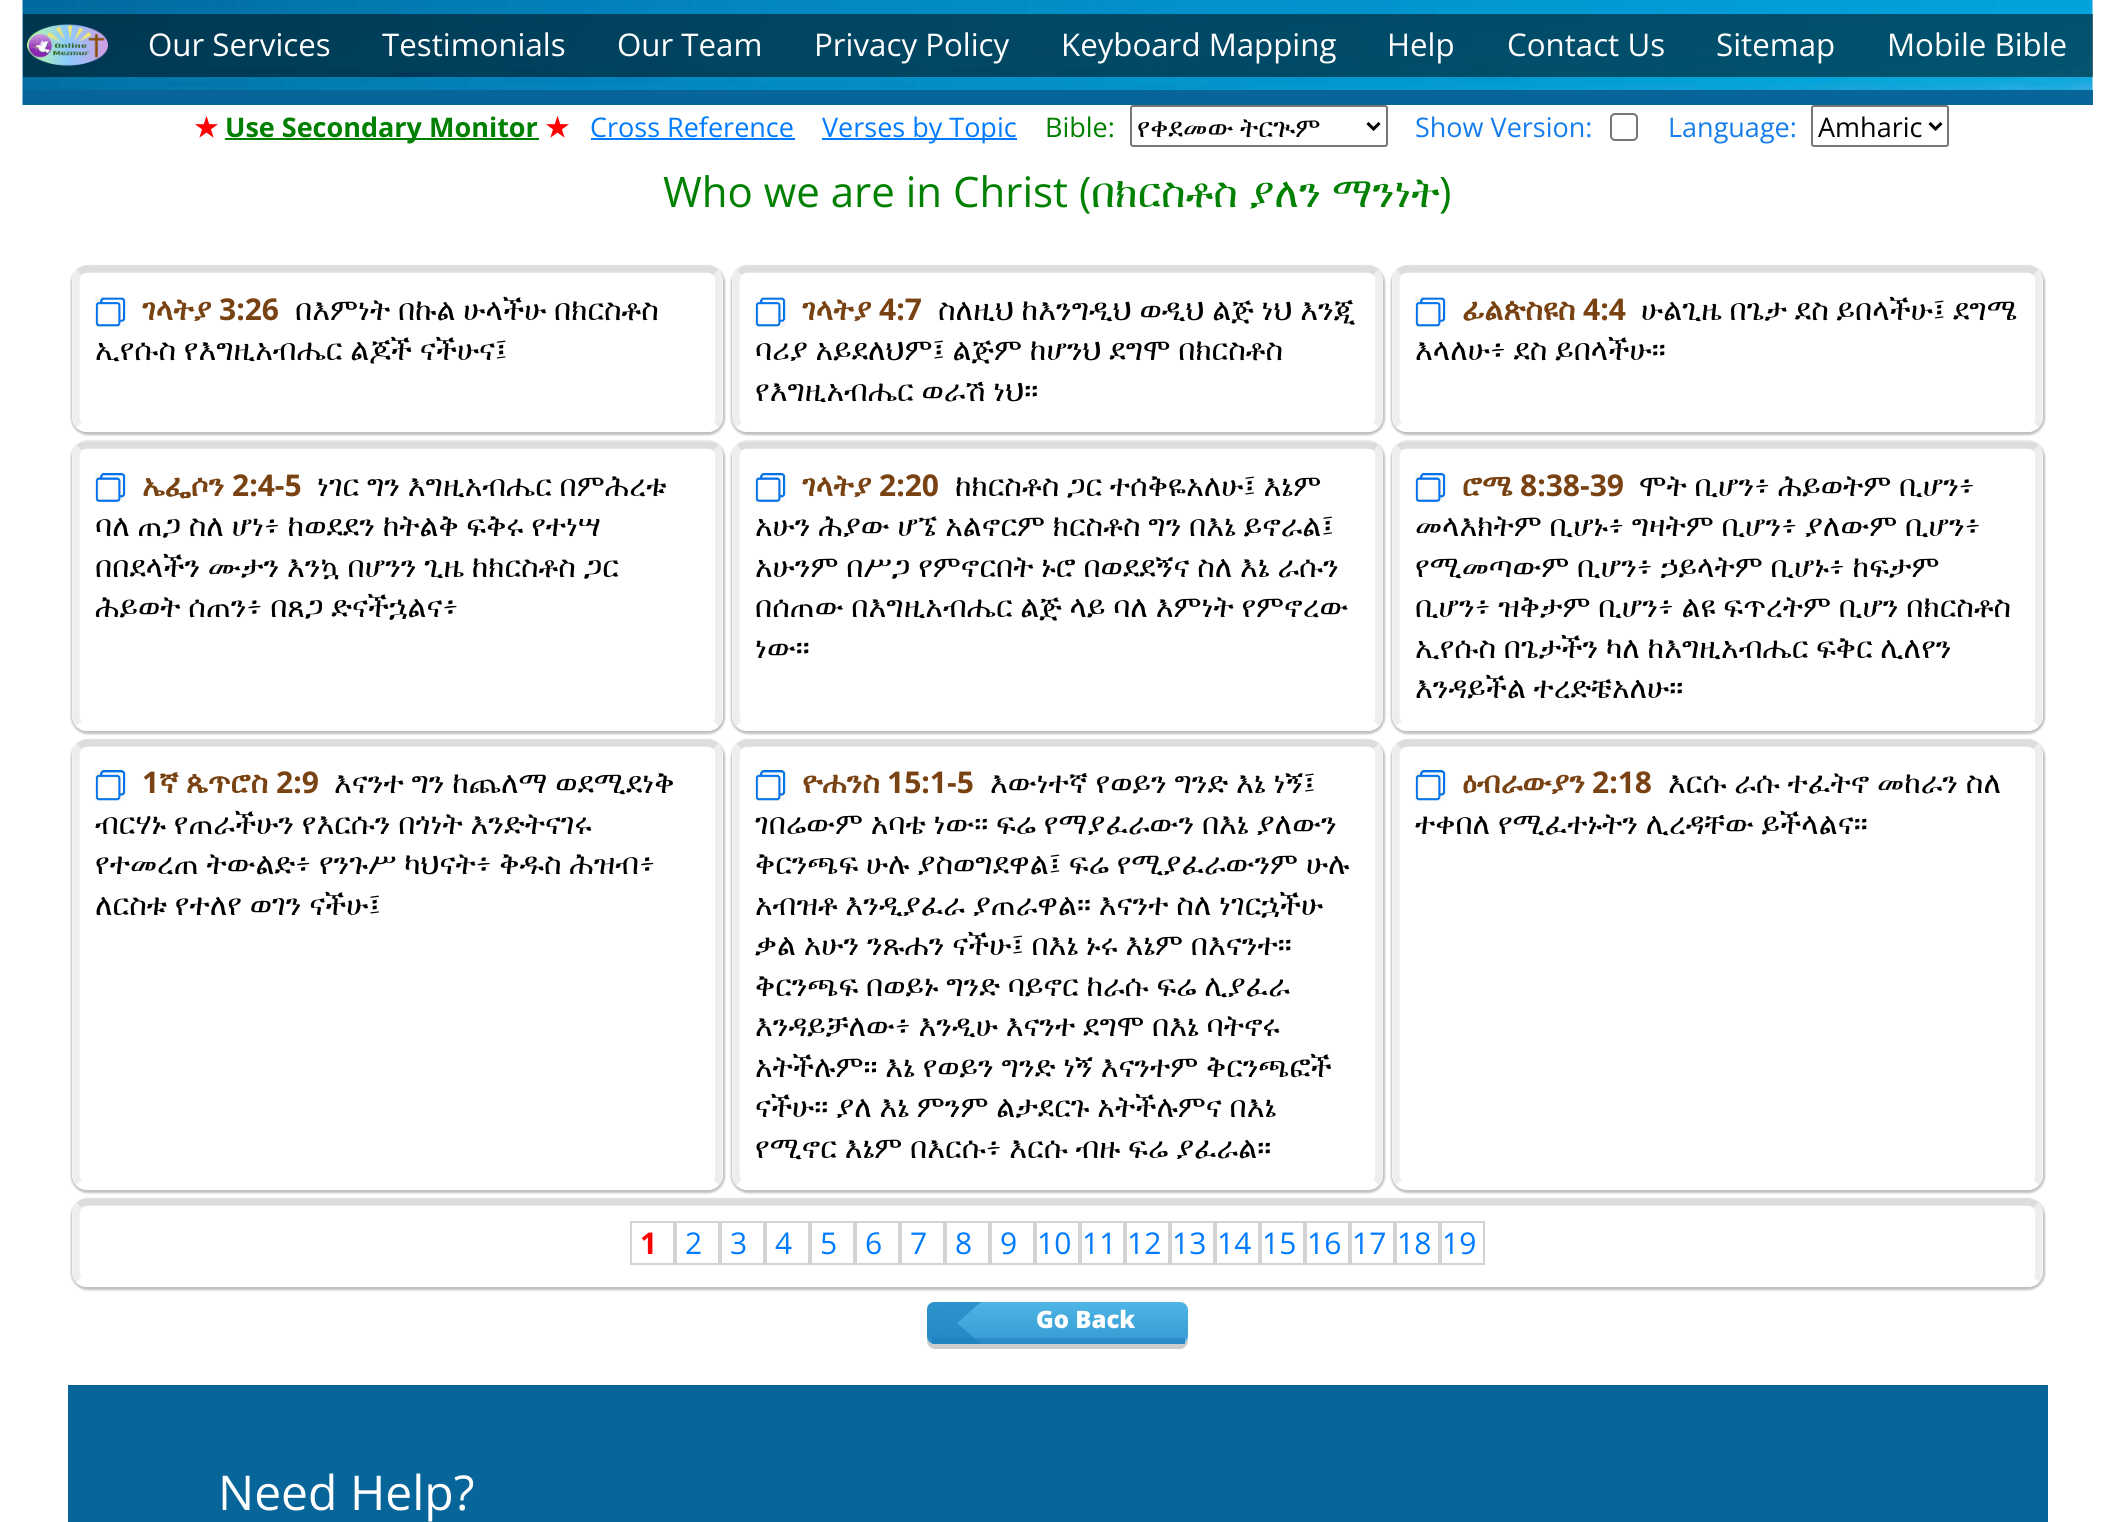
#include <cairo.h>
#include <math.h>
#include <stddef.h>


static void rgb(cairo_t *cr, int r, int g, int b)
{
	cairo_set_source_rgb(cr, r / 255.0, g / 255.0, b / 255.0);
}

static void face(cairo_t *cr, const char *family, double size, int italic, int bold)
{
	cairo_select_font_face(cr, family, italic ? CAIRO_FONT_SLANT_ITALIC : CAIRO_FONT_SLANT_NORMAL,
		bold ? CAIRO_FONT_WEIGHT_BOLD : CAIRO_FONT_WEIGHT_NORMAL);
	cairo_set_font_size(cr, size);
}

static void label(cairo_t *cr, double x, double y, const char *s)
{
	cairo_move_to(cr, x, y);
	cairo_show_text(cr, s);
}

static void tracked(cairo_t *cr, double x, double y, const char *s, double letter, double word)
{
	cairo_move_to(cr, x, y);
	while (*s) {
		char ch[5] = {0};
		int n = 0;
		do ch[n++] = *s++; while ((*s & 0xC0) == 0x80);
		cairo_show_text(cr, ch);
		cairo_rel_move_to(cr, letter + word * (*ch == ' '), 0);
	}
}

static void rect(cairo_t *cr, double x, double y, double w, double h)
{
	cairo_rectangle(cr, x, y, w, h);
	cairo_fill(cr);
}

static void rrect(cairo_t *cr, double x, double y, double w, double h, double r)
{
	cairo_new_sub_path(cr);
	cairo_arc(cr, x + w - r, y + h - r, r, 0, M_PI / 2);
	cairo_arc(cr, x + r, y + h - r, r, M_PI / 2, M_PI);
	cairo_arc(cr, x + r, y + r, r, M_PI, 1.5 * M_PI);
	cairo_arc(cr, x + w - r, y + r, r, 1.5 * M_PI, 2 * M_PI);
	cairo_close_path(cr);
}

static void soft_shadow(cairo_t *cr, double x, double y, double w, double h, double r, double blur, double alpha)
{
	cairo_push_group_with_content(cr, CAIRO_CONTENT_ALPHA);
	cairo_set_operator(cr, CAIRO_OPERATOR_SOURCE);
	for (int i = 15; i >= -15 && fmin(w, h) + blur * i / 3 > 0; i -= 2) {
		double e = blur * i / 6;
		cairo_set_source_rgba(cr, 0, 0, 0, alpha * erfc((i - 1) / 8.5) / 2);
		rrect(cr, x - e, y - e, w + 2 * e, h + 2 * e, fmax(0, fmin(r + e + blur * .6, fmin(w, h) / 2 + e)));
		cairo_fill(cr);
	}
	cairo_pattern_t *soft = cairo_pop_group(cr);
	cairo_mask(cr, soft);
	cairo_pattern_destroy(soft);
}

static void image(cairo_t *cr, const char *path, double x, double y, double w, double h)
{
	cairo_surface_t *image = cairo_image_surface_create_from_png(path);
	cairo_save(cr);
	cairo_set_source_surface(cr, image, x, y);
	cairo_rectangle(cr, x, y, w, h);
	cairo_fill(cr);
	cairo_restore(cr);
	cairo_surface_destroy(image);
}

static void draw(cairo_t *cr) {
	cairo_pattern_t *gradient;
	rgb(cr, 255, 255, 255);
	cairo_paint(cr);
	image(cr, "image0.png", 22, 0, 2071, 105);
	rgb(cr, 7, 101, 153);
	rect(cr, 23, 90, 2070, 15);
	cairo_set_source_rgba(cr, 0, 0, 0, 0.5);
	rect(cr, 23, 14, 2070, 63);
	image(cr, "image1.png", 27, 24, 81, 42);
	face(cr, "Open Sans", 31.25, 0, 0);
	rgb(cr, 255, 255, 255);
	label(cr, 148, 56, "Our Services");
	label(cr, 382, 56, "Testimonials");
	label(cr, 617, 56, "Our Team");
	label(cr, 814, 56, "Privacy Policy");
	label(cr, 1061, 56, "Keyboard Mapping");
	label(cr, 1387, 56, "Help");
	label(cr, 1507, 56, "Contact Us");
	label(cr, 1716, 56, "Sitemap");
	label(cr, 1887, 56, "Mobile Bible");
	face(cr, "DejaVu Sans", 27, 0, 1);
	rgb(cr, 255, 0, 0);
	label(cr, 194, 137, "★");
	rgb(cr, 0, 128, 0);
	rect(cr, 225, 138, 314, 2);
	face(cr, "Open Sans", 27, 0, 1);
	label(cr, 225, 137, "Use Secondary Monitor");
	face(cr, "DejaVu Sans", 27, 0, 1);
	rgb(cr, 255, 0, 0);
	label(cr, 545, 137, "★");
	face(cr, "Open Sans", 27, 0, 0);
	rgb(cr, 0, 123, 255);
	label(cr, 590, 137, "Cross Reference");
	rect(cr, 591, 138, 204, 2);
	rect(cr, 822, 138, 195, 2);
	label(cr, 822, 137, "Verses by Topic");
	rgb(cr, 0, 128, 0);
	label(cr, 1045, 137, "Bible:");
	rrect(cr, 1131, 106, 256, 40, 2);
	rgb(cr, 118, 118, 118);
	cairo_stroke(cr);
	cairo_new_path(cr);
	cairo_move_to(cr, 1367.5, 123);
	cairo_line_to(cr, 1373.5, 129);
	cairo_line_to(cr, 1379.5, 123);
	rgb(cr, 0, 0, 0);
	cairo_set_line_width(cr, 3);
	cairo_stroke(cr);
	face(cr, "FreeSerif", 27, 0, 0);
	label(cr, 1137, 137, "የቀደመው ትርጒም");
	face(cr, "Open Sans", 27, 0, 0);
	rgb(cr, 21, 125, 236);
	label(cr, 1415, 137, "Show Version:");
	rrect(cr, 1611, 114, 26, 26, 4);
	rgb(cr, 118, 118, 118);
	cairo_set_line_width(cr, 2);
	cairo_stroke(cr);
	rgb(cr, 21, 125, 236);
	label(cr, 1668, 137, "Language:");
	rrect(cr, 1812, 106, 136, 40, 2);
	rgb(cr, 118, 118, 118);
	cairo_stroke(cr);
	cairo_new_path(cr);
	cairo_move_to(cr, 1929.5, 123);
	cairo_line_to(cr, 1935.5, 129);
	cairo_line_to(cr, 1941.5, 123);
	rgb(cr, 0, 0, 0);
	cairo_set_line_width(cr, 3);
	cairo_stroke(cr);
	label(cr, 1818, 137, "Amharic");
	face(cr, "Open Sans", 42, 0, 0);
	rgb(cr, 0, 128, 0);
	label(cr, 663, 207, "Who we are in Christ (");
	face(cr, "FreeSerif", 42, 0, 0);
	label(cr, 1091, 207, "በክርስቶስ");
	label(cr, 1249, 207, "ያለን");
	label(cr, 1332, 207, "ማንነት");
	face(cr, "Open Sans", 42, 0, 0);
	label(cr, 1439, 207, ")");
	rgb(cr, 0, 0, 0);
	soft_shadow(cr, 71, 266, 654, 169, 17, 1, 0.25);
	rgb(cr, 255, 255, 255);
	rrect(cr, 72, 266, 651, 166, 15);
	cairo_fill(cr);
	cairo_new_path(cr);
	cairo_move_to(cr, 79, 272.5);
	cairo_curve_to(cr, 81, 270.5, 84, 269, 87, 269);
	cairo_line_to(cr, 708, 269);
	cairo_curve_to(cr, 711, 269, 714, 270.5, 716, 272.5);
	rgb(cr, 221, 221, 221);
	cairo_set_line_width(cr, 7.5);
	cairo_stroke(cr);
	cairo_new_path(cr);
	cairo_move_to(cr, 716, 272.5);
	cairo_curve_to(cr, 718, 274.5, 719, 277.5, 719, 280.5);
	cairo_line_to(cr, 719, 417);
	cairo_curve_to(cr, 719, 420, 718, 423, 716, 425);
	rgb(cr, 238, 238, 238);
	cairo_stroke(cr);
	cairo_new_path(cr);
	cairo_move_to(cr, 716, 425);
	cairo_curve_to(cr, 714, 427, 711, 428, 708, 428);
	cairo_line_to(cr, 87, 428);
	cairo_curve_to(cr, 84, 428, 81, 427, 79, 425);
	rgb(cr, 255, 255, 255);
	cairo_stroke(cr);
	cairo_new_path(cr);
	cairo_move_to(cr, 79, 425);
	cairo_curve_to(cr, 77, 423, 76, 420, 76, 417);
	cairo_line_to(cr, 76, 280.5);
	cairo_curve_to(cr, 76, 277.5, 77, 274.5, 79, 272.5);
	rgb(cr, 238, 238, 238);
	cairo_stroke(cr);
	image(cr, "image2.png", 94, 297, 32, 30);
	face(cr, "FreeSerif", 30, 0, 1);
	rgb(cr, 120, 66, 18);
	label(cr, 142, 320, "ገላትያ");
	face(cr, "Open Sans", 30, 0, 1);
	label(cr, 219, 320, "3:26");
	face(cr, "FreeSerif", 30, 0, 0);
	rgb(cr, 0, 0, 0);
	tracked(cr, 295, 320, "በእምነት በኩል ሁላችሁ በክርስቶስ", 0, 0.25);
	tracked(cr, 95, 360, "ኢየሱስ የእግዚአብሔር ልጆች ናችሁና፤", 0, 0.25);
	rgb(cr, 0, 0, 0);
	soft_shadow(cr, 731, 266, 654, 169, 17, 1, 0.25);
	rgb(cr, 255, 255, 255);
	rrect(cr, 732, 266, 651, 166, 15);
	cairo_fill(cr);
	cairo_new_path(cr);
	cairo_move_to(cr, 739, 272.5);
	cairo_curve_to(cr, 741, 270.5, 744, 269, 747, 269);
	cairo_line_to(cr, 1368, 269);
	cairo_curve_to(cr, 1371, 269, 1374, 270.5, 1376, 272.5);
	rgb(cr, 221, 221, 221);
	cairo_stroke(cr);
	cairo_new_path(cr);
	cairo_move_to(cr, 1376, 272.5);
	cairo_curve_to(cr, 1378, 274.5, 1379, 277.5, 1379, 280.5);
	cairo_line_to(cr, 1379, 417);
	cairo_curve_to(cr, 1379, 420, 1378, 423, 1376, 425);
	rgb(cr, 238, 238, 238);
	cairo_stroke(cr);
	cairo_new_path(cr);
	cairo_move_to(cr, 1376, 425);
	cairo_curve_to(cr, 1374, 427, 1371, 428, 1368, 428);
	cairo_line_to(cr, 747, 428);
	cairo_curve_to(cr, 744, 428, 741, 427, 739, 425);
	rgb(cr, 255, 255, 255);
	cairo_stroke(cr);
	cairo_new_path(cr);
	cairo_move_to(cr, 739, 425);
	cairo_curve_to(cr, 737, 423, 736, 420, 736, 417);
	cairo_line_to(cr, 736, 280.5);
	cairo_curve_to(cr, 736, 277.5, 737, 274.5, 739, 272.5);
	rgb(cr, 238, 238, 238);
	cairo_stroke(cr);
	image(cr, "image2.png", 754, 297, 32, 30);
	face(cr, "FreeSerif", 30, 0, 1);
	rgb(cr, 120, 66, 18);
	label(cr, 802, 320, "ገላትያ");
	face(cr, "Open Sans", 30, 0, 1);
	label(cr, 879, 320, "4:7");
	face(cr, "FreeSerif", 30, 0, 0);
	rgb(cr, 0, 0, 0);
	tracked(cr, 938, 320, "ስለዚህ ከእንግዲህ ወዲህ ልጅ ነህ እንጂ", 0, 0.25);
	tracked(cr, 755, 360, "ባሪያ አይደለህም፤ ልጅም ከሆንህ ደግሞ በክርስቶስ", 0, 0.25);
	tracked(cr, 755, 401, "የእግዚአብሔር ወራሽ ነህ።", 0, 0.25);
	rgb(cr, 0, 0, 0);
	soft_shadow(cr, 1391, 266, 654, 169, 17, 1, 0.25);
	rgb(cr, 255, 255, 255);
	rrect(cr, 1392, 266, 651, 166, 15);
	cairo_fill(cr);
	cairo_new_path(cr);
	cairo_move_to(cr, 1399, 272.5);
	cairo_curve_to(cr, 1401, 270.5, 1404, 269, 1407, 269);
	cairo_line_to(cr, 2028, 269);
	cairo_curve_to(cr, 2031, 269, 2034, 270.5, 2036, 272.5);
	rgb(cr, 221, 221, 221);
	cairo_stroke(cr);
	cairo_new_path(cr);
	cairo_move_to(cr, 2036, 272.5);
	cairo_curve_to(cr, 2038, 274.5, 2039, 277.5, 2039, 280.5);
	cairo_line_to(cr, 2039, 417);
	cairo_curve_to(cr, 2039, 420, 2038, 423, 2036, 425);
	rgb(cr, 238, 238, 238);
	cairo_stroke(cr);
	cairo_new_path(cr);
	cairo_move_to(cr, 2036, 425);
	cairo_curve_to(cr, 2034, 427, 2031, 428, 2028, 428);
	cairo_line_to(cr, 1407, 428);
	cairo_curve_to(cr, 1404, 428, 1401, 427, 1399, 425);
	rgb(cr, 255, 255, 255);
	cairo_stroke(cr);
	cairo_new_path(cr);
	cairo_move_to(cr, 1399, 425);
	cairo_curve_to(cr, 1397, 423, 1396, 420, 1396, 417);
	cairo_line_to(cr, 1396, 280.5);
	cairo_curve_to(cr, 1396, 277.5, 1397, 274.5, 1399, 272.5);
	rgb(cr, 238, 238, 238);
	cairo_stroke(cr);
	image(cr, "image2.png", 1414, 297, 32, 30);
	face(cr, "FreeSerif", 30, 0, 1);
	rgb(cr, 120, 66, 18);
	label(cr, 1462, 320, "ፊልጵስዩስ");
	face(cr, "Open Sans", 30, 0, 1);
	label(cr, 1583, 320, "4:4");
	face(cr, "FreeSerif", 30, 0, 0);
	rgb(cr, 0, 0, 0);
	tracked(cr, 1641, 320, "ሁልጊዜ በጌታ ደስ ይበላችሁ፤ ደግሜ", 0, 0.25);
	tracked(cr, 1415, 360, "እላለሁ፥ ደስ ይበላችሁ።", 0, 0.25);
	rgb(cr, 0, 0, 0);
	soft_shadow(cr, 71, 441, 654, 293, 17, 1, 0.25);
	rgb(cr, 255, 255, 255);
	rrect(cr, 72, 441, 651, 290, 15);
	cairo_fill(cr);
	cairo_new_path(cr);
	cairo_move_to(cr, 79, 448);
	cairo_curve_to(cr, 81, 446, 84, 445, 87, 445);
	cairo_line_to(cr, 708, 445);
	cairo_curve_to(cr, 711, 445, 714, 446, 716, 448);
	rgb(cr, 221, 221, 221);
	cairo_stroke(cr);
	cairo_new_path(cr);
	cairo_move_to(cr, 716, 448);
	cairo_curve_to(cr, 718, 450, 719, 453, 719, 456);
	cairo_line_to(cr, 719, 715.5);
	cairo_curve_to(cr, 719, 718.5, 718, 721.5, 716, 723.5);
	rgb(cr, 238, 238, 238);
	cairo_stroke(cr);
	cairo_new_path(cr);
	cairo_move_to(cr, 716, 723.5);
	cairo_curve_to(cr, 714, 725.5, 711, 727, 708, 727);
	cairo_line_to(cr, 87, 727);
	cairo_curve_to(cr, 84, 727, 81, 725.5, 79, 723.5);
	rgb(cr, 255, 255, 255);
	cairo_stroke(cr);
	cairo_new_path(cr);
	cairo_move_to(cr, 79, 723.5);
	cairo_curve_to(cr, 77, 721.5, 76, 718.5, 76, 715.5);
	cairo_line_to(cr, 76, 456);
	cairo_curve_to(cr, 76, 453, 77, 450, 79, 448);
	rgb(cr, 238, 238, 238);
	cairo_stroke(cr);
	image(cr, "image3.png", 94, 472, 32, 31);
	face(cr, "FreeSerif", 30, 0, 1);
	rgb(cr, 120, 66, 18);
	label(cr, 142, 496, "ኤፌሶን");
	face(cr, "Open Sans", 30, 0, 1);
	label(cr, 232, 496, "2:4-5");
	face(cr, "FreeSerif", 30, 0, 0);
	rgb(cr, 0, 0, 0);
	tracked(cr, 317, 496, "ነገር ግን እግዚአብሔር በምሕረቱ", 0, 0.25);
	tracked(cr, 95, 536, "ባለ ጠጋ ስለ ሆነ፥ ከወደደን ከትልቅ ፍቅሩ የተነሣ", 0, 0.25);
	tracked(cr, 95, 577, "በበደላችን ሙታን እንኳ በሆንን ጊዜ ከክርስቶስ ጋር", 0, 0.25);
	tracked(cr, 95, 617, "ሕይወት ሰጠን፥ በጸጋ ድናችኋልና፥", 0, 0.25);
	rgb(cr, 0, 0, 0);
	soft_shadow(cr, 731, 441, 654, 293, 17, 1, 0.25);
	rgb(cr, 255, 255, 255);
	rrect(cr, 732, 441, 651, 290, 15);
	cairo_fill(cr);
	cairo_new_path(cr);
	cairo_move_to(cr, 739, 448);
	cairo_curve_to(cr, 741, 446, 744, 445, 747, 445);
	cairo_line_to(cr, 1368, 445);
	cairo_curve_to(cr, 1371, 445, 1374, 446, 1376, 448);
	rgb(cr, 221, 221, 221);
	cairo_stroke(cr);
	cairo_new_path(cr);
	cairo_move_to(cr, 1376, 448);
	cairo_curve_to(cr, 1378, 450, 1379, 453, 1379, 456);
	cairo_line_to(cr, 1379, 715.5);
	cairo_curve_to(cr, 1379, 718.5, 1378, 721.5, 1376, 723.5);
	rgb(cr, 238, 238, 238);
	cairo_stroke(cr);
	cairo_new_path(cr);
	cairo_move_to(cr, 1376, 723.5);
	cairo_curve_to(cr, 1374, 725.5, 1371, 727, 1368, 727);
	cairo_line_to(cr, 747, 727);
	cairo_curve_to(cr, 744, 727, 741, 725.5, 739, 723.5);
	rgb(cr, 255, 255, 255);
	cairo_stroke(cr);
	cairo_new_path(cr);
	cairo_move_to(cr, 739, 723.5);
	cairo_curve_to(cr, 737, 721.5, 736, 718.5, 736, 715.5);
	cairo_line_to(cr, 736, 456);
	cairo_curve_to(cr, 736, 453, 737, 450, 739, 448);
	rgb(cr, 238, 238, 238);
	cairo_stroke(cr);
	image(cr, "image3.png", 754, 472, 32, 31);
	face(cr, "FreeSerif", 30, 0, 1);
	rgb(cr, 120, 66, 18);
	label(cr, 802, 496, "ገላትያ");
	face(cr, "Open Sans", 30, 0, 1);
	label(cr, 879, 496, "2:20");
	face(cr, "FreeSerif", 30, 0, 0);
	rgb(cr, 0, 0, 0);
	tracked(cr, 955, 496, "ከክርስቶስ ጋር ተሰቅዬአለሁ፤ እኔም", 0, 0.25);
	tracked(cr, 755, 536, "አሁን ሕያው ሆኜ አልኖርም ክርስቶስ ግን በእኔ ይኖራል፤", 0, 0.25);
	tracked(cr, 755, 577, "አሁንም በሥጋ የምኖርበት ኑሮ በወደደኝና ስለ እኔ ራሱን", 0, 0.25);
	tracked(cr, 755, 617, "በሰጠው በእግዚአብሔር ልጅ ላይ ባለ እምነት የምኖረው", 0, 0.25);
	label(cr, 755, 658, "ነው።");
	rgb(cr, 0, 0, 0);
	soft_shadow(cr, 1391, 441, 654, 293, 17, 1, 0.25);
	rgb(cr, 255, 255, 255);
	rrect(cr, 1392, 441, 651, 290, 15);
	cairo_fill(cr);
	cairo_new_path(cr);
	cairo_move_to(cr, 1399, 448);
	cairo_curve_to(cr, 1401, 446, 1404, 445, 1407, 445);
	cairo_line_to(cr, 2028, 445);
	cairo_curve_to(cr, 2031, 445, 2034, 446, 2036, 448);
	rgb(cr, 221, 221, 221);
	cairo_stroke(cr);
	cairo_new_path(cr);
	cairo_move_to(cr, 2036, 448);
	cairo_curve_to(cr, 2038, 450, 2039, 453, 2039, 456);
	cairo_line_to(cr, 2039, 715.5);
	cairo_curve_to(cr, 2039, 718.5, 2038, 721.5, 2036, 723.5);
	rgb(cr, 238, 238, 238);
	cairo_stroke(cr);
	cairo_new_path(cr);
	cairo_move_to(cr, 2036, 723.5);
	cairo_curve_to(cr, 2034, 725.5, 2031, 727, 2028, 727);
	cairo_line_to(cr, 1407, 727);
	cairo_curve_to(cr, 1404, 727, 1401, 725.5, 1399, 723.5);
	rgb(cr, 255, 255, 255);
	cairo_stroke(cr);
	cairo_new_path(cr);
	cairo_move_to(cr, 1399, 723.5);
	cairo_curve_to(cr, 1397, 721.5, 1396, 718.5, 1396, 715.5);
	cairo_line_to(cr, 1396, 456);
	cairo_curve_to(cr, 1396, 453, 1397, 450, 1399, 448);
	rgb(cr, 238, 238, 238);
	cairo_stroke(cr);
	image(cr, "image3.png", 1414, 472, 32, 31);
	face(cr, "FreeSerif", 30, 0, 1);
	rgb(cr, 120, 66, 18);
	label(cr, 1462, 496, "ሮሜ");
	face(cr, "Open Sans", 30, 0, 1);
	label(cr, 1520, 496, "8:38-39");
	face(cr, "FreeSerif", 30, 0, 0);
	rgb(cr, 0, 0, 0);
	tracked(cr, 1639, 496, "ሞት ቢሆን፥ ሕይወትም ቢሆን፥", 0, 0.25);
	tracked(cr, 1415, 536, "መላእክትም ቢሆኑ፥ ግዛትም ቢሆን፥ ያለውም ቢሆን፥", 0, 0.25);
	tracked(cr, 1415, 577, "የሚመጣውም ቢሆን፥ ኃይላትም ቢሆኑ፥ ከፍታም", 0, 0.25);
	tracked(cr, 1415, 617, "ቢሆን፥ ዝቅታም ቢሆን፥ ልዩ ፍጥረትም ቢሆን በክርስቶስ", 0, 0.25);
	tracked(cr, 1415, 658, "ኢየሱስ በጌታችን ካለ ከእግዚአብሔር ፍቅር ሊለየን", 0, 0.25);
	label(cr, 1415, 698, "እንዳይችል ተረድቼአለሁ።");
	rgb(cr, 0, 0, 0);
	soft_shadow(cr, 71, 740, 654, 453, 17, 1, 0.25);
	rgb(cr, 255, 255, 255);
	rrect(cr, 72, 740, 651, 450, 15);
	cairo_fill(cr);
	cairo_new_path(cr);
	cairo_move_to(cr, 79, 746.5);
	cairo_curve_to(cr, 81, 744.5, 84, 743, 87, 743);
	cairo_line_to(cr, 708, 743);
	cairo_curve_to(cr, 711, 743, 714, 744.5, 716, 746.5);
	rgb(cr, 221, 221, 221);
	cairo_stroke(cr);
	cairo_new_path(cr);
	cairo_move_to(cr, 716, 746.5);
	cairo_curve_to(cr, 718, 748.5, 719, 751.5, 719, 754.5);
	cairo_line_to(cr, 719, 1174.5);
	cairo_curve_to(cr, 719, 1177.5, 718, 1180.5, 716, 1182.5);
	rgb(cr, 238, 238, 238);
	cairo_stroke(cr);
	cairo_new_path(cr);
	cairo_move_to(cr, 716, 1182.5);
	cairo_curve_to(cr, 714, 1184.5, 711, 1186, 708, 1186);
	cairo_line_to(cr, 87, 1186);
	cairo_curve_to(cr, 84, 1186, 81, 1184.5, 79, 1182.5);
	rgb(cr, 255, 255, 255);
	cairo_stroke(cr);
	cairo_new_path(cr);
	cairo_move_to(cr, 79, 1182.5);
	cairo_curve_to(cr, 77, 1180.5, 76, 1177.5, 76, 1174.5);
	cairo_line_to(cr, 76, 754.5);
	cairo_curve_to(cr, 76, 751.5, 77, 748.5, 79, 746.5);
	rgb(cr, 238, 238, 238);
	cairo_stroke(cr);
	image(cr, "image4.png", 94, 769, 32, 32);
	face(cr, "Open Sans", 30, 0, 1);
	rgb(cr, 120, 66, 18);
	label(cr, 142, 793, "1");
	face(cr, "FreeSerif", 30, 0, 1);
	tracked(cr, 159, 793, "ኛ ጴጥሮስ", 0, 0.25);
	face(cr, "Open Sans", 30, 0, 1);
	label(cr, 276, 793, "2:9");
	face(cr, "FreeSerif", 30, 0, 0);
	rgb(cr, 0, 0, 0);
	tracked(cr, 334, 793, "እናንተ ግን ከጨለማ ወደሚደነቅ", 0, 0.25);
	tracked(cr, 95, 834, "ብርሃኑ የጠራችሁን የእርሱን በጎነት እንድትናገሩ", 0, 0.25);
	tracked(cr, 95, 874, "የተመረጠ ትውልድ፥ የንጉሥ ካህናት፥ ቅዱስ ሕዝብ፥", 0, 0.25);
	tracked(cr, 95, 915, "ለርስቱ የተለየ ወገን ናችሁ፤", 0, 0.25);
	rgb(cr, 0, 0, 0);
	soft_shadow(cr, 731, 740, 654, 453, 17, 1, 0.25);
	rgb(cr, 255, 255, 255);
	rrect(cr, 732, 740, 651, 450, 15);
	cairo_fill(cr);
	cairo_new_path(cr);
	cairo_move_to(cr, 739, 746.5);
	cairo_curve_to(cr, 741, 744.5, 744, 743, 747, 743);
	cairo_line_to(cr, 1368, 743);
	cairo_curve_to(cr, 1371, 743, 1374, 744.5, 1376, 746.5);
	rgb(cr, 221, 221, 221);
	cairo_stroke(cr);
	cairo_new_path(cr);
	cairo_move_to(cr, 1376, 746.5);
	cairo_curve_to(cr, 1378, 748.5, 1379, 751.5, 1379, 754.5);
	cairo_line_to(cr, 1379, 1174.5);
	cairo_curve_to(cr, 1379, 1177.5, 1378, 1180.5, 1376, 1182.5);
	rgb(cr, 238, 238, 238);
	cairo_stroke(cr);
	cairo_new_path(cr);
	cairo_move_to(cr, 1376, 1182.5);
	cairo_curve_to(cr, 1374, 1184.5, 1371, 1186, 1368, 1186);
	cairo_line_to(cr, 747, 1186);
	cairo_curve_to(cr, 744, 1186, 741, 1184.5, 739, 1182.5);
	rgb(cr, 255, 255, 255);
	cairo_stroke(cr);
	cairo_new_path(cr);
	cairo_move_to(cr, 739, 1182.5);
	cairo_curve_to(cr, 737, 1180.5, 736, 1177.5, 736, 1174.5);
	cairo_line_to(cr, 736, 754.5);
	cairo_curve_to(cr, 736, 751.5, 737, 748.5, 739, 746.5);
	rgb(cr, 238, 238, 238);
	cairo_stroke(cr);
	image(cr, "image4.png", 754, 769, 32, 32);
	face(cr, "FreeSerif", 30, 0, 1);
	rgb(cr, 120, 66, 18);
	label(cr, 802, 793, "ዮሐንስ");
	face(cr, "Open Sans", 30, 0, 1);
	label(cr, 887, 793, "15:1-5");
	face(cr, "FreeSerif", 30, 0, 0);
	rgb(cr, 0, 0, 0);
	tracked(cr, 990, 793, "እውነተኛ የወይን ግንድ እኔ ነኝ፤", 0, 0.25);
	tracked(cr, 755, 834, "ገበሬውም አባቴ ነው። ፍሬ የማያፈራውን በእኔ ያለውን", 0, 0.25);
	tracked(cr, 755, 874, "ቅርንጫፍ ሁሉ ያስወግደዋል፤ ፍሬ የሚያፈራውንም ሁሉ", 0, 0.25);
	tracked(cr, 755, 915, "አብዝቶ እንዲያፈራ ያጠራዋል። እናንተ ስለ ነገርኋችሁ", 0, 0.25);
	tracked(cr, 755, 955, "ቃል አሁን ንጹሐን ናችሁ፤ በእኔ ኑሩ እኔም በእናንተ።", 0, 0.25);
	tracked(cr, 755, 996, "ቅርንጫፍ በወይኑ ግንድ ባይኖር ከራሱ ፍሬ ሊያፈራ", 0, 0.25);
	tracked(cr, 755, 1036, "እንዳይቻለው፥ እንዲሁ እናንተ ደግሞ በእኔ ባትኖሩ", 0, 0.25);
	tracked(cr, 755, 1077, "አትችሉም። እኔ የወይን ግንድ ነኝ እናንተም ቅርንጫፎች", 0, 0.25);
	tracked(cr, 755, 1117, "ናችሁ። ያለ እኔ ምንም ልታደርጉ አትችሉምና በእኔ", 0, 0.25);
	tracked(cr, 755, 1158, "የሚኖር እኔም በእርሱ፥ እርሱ ብዙ ፍሬ ያፈራል።", 0, 0.25);
	rgb(cr, 0, 0, 0);
	soft_shadow(cr, 1391, 740, 654, 453, 17, 1, 0.25);
	rgb(cr, 255, 255, 255);
	rrect(cr, 1392, 740, 651, 450, 15);
	cairo_fill(cr);
	cairo_new_path(cr);
	cairo_move_to(cr, 1399, 746.5);
	cairo_curve_to(cr, 1401, 744.5, 1404, 743, 1407, 743);
	cairo_line_to(cr, 2028, 743);
	cairo_curve_to(cr, 2031, 743, 2034, 744.5, 2036, 746.5);
	rgb(cr, 221, 221, 221);
	cairo_stroke(cr);
	cairo_new_path(cr);
	cairo_move_to(cr, 2036, 746.5);
	cairo_curve_to(cr, 2038, 748.5, 2039, 751.5, 2039, 754.5);
	cairo_line_to(cr, 2039, 1174.5);
	cairo_curve_to(cr, 2039, 1177.5, 2038, 1180.5, 2036, 1182.5);
	rgb(cr, 238, 238, 238);
	cairo_stroke(cr);
	cairo_new_path(cr);
	cairo_move_to(cr, 2036, 1182.5);
	cairo_curve_to(cr, 2034, 1184.5, 2031, 1186, 2028, 1186);
	cairo_line_to(cr, 1407, 1186);
	cairo_curve_to(cr, 1404, 1186, 1401, 1184.5, 1399, 1182.5);
	rgb(cr, 255, 255, 255);
	cairo_stroke(cr);
	cairo_new_path(cr);
	cairo_move_to(cr, 1399, 1182.5);
	cairo_curve_to(cr, 1397, 1180.5, 1396, 1177.5, 1396, 1174.5);
	cairo_line_to(cr, 1396, 754.5);
	cairo_curve_to(cr, 1396, 751.5, 1397, 748.5, 1399, 746.5);
	rgb(cr, 238, 238, 238);
	cairo_stroke(cr);
	image(cr, "image4.png", 1414, 769, 32, 32);
	face(cr, "FreeSerif", 30, 0, 1);
	rgb(cr, 120, 66, 18);
	label(cr, 1462, 793, "ዕብራውያን");
	face(cr, "Open Sans", 30, 0, 1);
	label(cr, 1592, 793, "2:18");
	face(cr, "FreeSerif", 30, 0, 0);
	rgb(cr, 0, 0, 0);
	tracked(cr, 1668, 793, "እርሱ ራሱ ተፈትኖ መከራን ስለ", 0, 0.25);
	tracked(cr, 1415, 834, "ተቀበለ የሚፈተኑትን ሊረዳቸው ይችላልና።", 0, 0.25);
	rgb(cr, 0, 0, 0);
	soft_shadow(cr, 71, 1199, 1974, 91, 17, 1, 0.25);
	rgb(cr, 255, 255, 255);
	rrect(cr, 72, 1199, 1971, 88, 15);
	cairo_fill(cr);
	cairo_new_path(cr);
	cairo_move_to(cr, 79, 1205.5);
	cairo_curve_to(cr, 81, 1203.5, 84, 1202, 87, 1202);
	cairo_line_to(cr, 2028, 1202);
	cairo_curve_to(cr, 2031, 1202, 2034, 1203.5, 2036, 1205.5);
	rgb(cr, 221, 221, 221);
	cairo_stroke(cr);
	cairo_new_path(cr);
	cairo_move_to(cr, 2036, 1205.5);
	cairo_curve_to(cr, 2038, 1207.5, 2039, 1210.5, 2039, 1213.5);
	cairo_line_to(cr, 2039, 1272);
	cairo_curve_to(cr, 2039, 1275, 2038, 1278, 2036, 1280);
	rgb(cr, 238, 238, 238);
	cairo_stroke(cr);
	cairo_new_path(cr);
	cairo_move_to(cr, 2036, 1280);
	cairo_curve_to(cr, 2034, 1282, 2031, 1283, 2028, 1283);
	cairo_line_to(cr, 87, 1283);
	cairo_curve_to(cr, 84, 1283, 81, 1282, 79, 1280);
	rgb(cr, 255, 255, 255);
	cairo_stroke(cr);
	cairo_new_path(cr);
	cairo_move_to(cr, 79, 1280);
	cairo_curve_to(cr, 77, 1278, 76, 1275, 76, 1272);
	cairo_line_to(cr, 76, 1213.5);
	cairo_curve_to(cr, 76, 1210.5, 77, 1207.5, 79, 1205.5);
	rgb(cr, 238, 238, 238);
	cairo_stroke(cr);
	cairo_rectangle(cr, 631, 1222, 43, 42);
	rgb(cr, 211, 211, 211);
	cairo_set_line_width(cr, 2);
	cairo_stroke(cr);
	face(cr, "Open Sans", 30, 0, 1);
	rgb(cr, 255, 0, 0);
	label(cr, 640, 1254, "1");
	cairo_rectangle(cr, 676, 1222, 43, 42);
	rgb(cr, 211, 211, 211);
	cairo_stroke(cr);
	face(cr, "Open Sans", 30, 0, 0);
	rgb(cr, 0, 123, 255);
	label(cr, 685, 1254, "2");
	cairo_rectangle(cr, 721, 1222, 43, 42);
	rgb(cr, 211, 211, 211);
	cairo_stroke(cr);
	rgb(cr, 0, 123, 255);
	label(cr, 730, 1254, "3");
	cairo_rectangle(cr, 766, 1222, 43, 42);
	rgb(cr, 211, 211, 211);
	cairo_stroke(cr);
	rgb(cr, 0, 123, 255);
	label(cr, 775, 1254, "4");
	cairo_rectangle(cr, 811, 1222, 43, 42);
	rgb(cr, 211, 211, 211);
	cairo_stroke(cr);
	rgb(cr, 0, 123, 255);
	label(cr, 820, 1254, "5");
	cairo_rectangle(cr, 856, 1222, 43, 42);
	rgb(cr, 211, 211, 211);
	cairo_stroke(cr);
	rgb(cr, 0, 123, 255);
	label(cr, 865, 1254, "6");
	cairo_rectangle(cr, 901, 1222, 43, 42);
	rgb(cr, 211, 211, 211);
	cairo_stroke(cr);
	rgb(cr, 0, 123, 255);
	label(cr, 910, 1254, "7");
	cairo_rectangle(cr, 946, 1222, 43, 42);
	rgb(cr, 211, 211, 211);
	cairo_stroke(cr);
	rgb(cr, 0, 123, 255);
	label(cr, 955, 1254, "8");
	cairo_rectangle(cr, 991, 1222, 43, 42);
	rgb(cr, 211, 211, 211);
	cairo_stroke(cr);
	rgb(cr, 0, 123, 255);
	label(cr, 1000, 1254, "9");
	cairo_rectangle(cr, 1036, 1222, 43, 42);
	rgb(cr, 211, 211, 211);
	cairo_stroke(cr);
	rgb(cr, 0, 123, 255);
	label(cr, 1037, 1254, "10");
	cairo_rectangle(cr, 1081, 1222, 43, 42);
	rgb(cr, 211, 211, 211);
	cairo_stroke(cr);
	rgb(cr, 0, 123, 255);
	label(cr, 1082, 1254, "11");
	cairo_rectangle(cr, 1126, 1222, 43, 42);
	rgb(cr, 211, 211, 211);
	cairo_stroke(cr);
	rgb(cr, 0, 123, 255);
	label(cr, 1127, 1254, "12");
	cairo_rectangle(cr, 1171, 1222, 43, 42);
	rgb(cr, 211, 211, 211);
	cairo_stroke(cr);
	rgb(cr, 0, 123, 255);
	label(cr, 1172, 1254, "13");
	cairo_rectangle(cr, 1216, 1222, 43, 42);
	rgb(cr, 211, 211, 211);
	cairo_stroke(cr);
	rgb(cr, 0, 123, 255);
	label(cr, 1217, 1254, "14");
	cairo_rectangle(cr, 1261, 1222, 43, 42);
	rgb(cr, 211, 211, 211);
	cairo_stroke(cr);
	rgb(cr, 0, 123, 255);
	label(cr, 1262, 1254, "15");
	cairo_rectangle(cr, 1306, 1222, 43, 42);
	rgb(cr, 211, 211, 211);
	cairo_stroke(cr);
	rgb(cr, 0, 123, 255);
	label(cr, 1307, 1254, "16");
	cairo_rectangle(cr, 1351, 1222, 43, 42);
	rgb(cr, 211, 211, 211);
	cairo_stroke(cr);
	rgb(cr, 0, 123, 255);
	label(cr, 1352, 1254, "17");
	cairo_rectangle(cr, 1396, 1222, 43, 42);
	rgb(cr, 211, 211, 211);
	cairo_stroke(cr);
	rgb(cr, 0, 123, 255);
	label(cr, 1397, 1254, "18");
	cairo_rectangle(cr, 1441, 1222, 43, 42);
	rgb(cr, 211, 211, 211);
	cairo_stroke(cr);
	rgb(cr, 0, 123, 255);
	label(cr, 1442, 1254, "19");
	rgb(cr, 204, 204, 204);
	cairo_new_path(cr);
	cairo_move_to(cr, 927, 1336);
	cairo_line_to(cr, 927, 1341);
	cairo_curve_to(cr, 927, 1345, 931, 1349, 935, 1349);
	cairo_line_to(cr, 1180, 1349);
	cairo_curve_to(cr, 1184, 1349, 1188, 1345, 1188, 1341);
	cairo_line_to(cr, 1188, 1336);
	cairo_curve_to(cr, 1188, 1341, 1185, 1344, 1180, 1344);
	cairo_line_to(cr, 934, 1344);
	cairo_curve_to(cr, 930, 1344, 927, 1341, 927, 1336);
	cairo_close_path(cr);
	cairo_fill(cr);
	cairo_save(cr);
	rrect(cr, 927, 1302, 261, 42, 8);
	cairo_clip(cr);
	gradient = cairo_pattern_create_linear(1058, 1302, 1058, 1338);
	cairo_pattern_add_color_stop_rgba(gradient, 0, 0.306, 0.71, 0.898, 1);
	cairo_pattern_add_color_stop_rgba(gradient, 1, 0.22, 0.62, 0.835, 1);
	cairo_set_source(cr, gradient);
	cairo_pattern_destroy(gradient);
	cairo_new_path(cr);
	cairo_move_to(cr, 935, 1302);
	cairo_line_to(cr, 1180, 1302);
	cairo_curve_to(cr, 1184.5, 1302, 1188, 1305.5, 1188, 1310);
	cairo_line_to(cr, 1188, 1338);
	cairo_line_to(cr, 927, 1338);
	cairo_line_to(cr, 927, 1310);
	cairo_curve_to(cr, 927, 1305.5, 930.5, 1302, 935, 1302);
	cairo_close_path(cr);
	cairo_fill(cr);
	gradient = cairo_pattern_create_linear(1058, 1338, 1058, 1374);
	cairo_pattern_add_color_stop_rgba(gradient, 0, 0.306, 0.71, 0.898, 1);
	cairo_pattern_add_color_stop_rgba(gradient, 1, 0.22, 0.62, 0.835, 1);
	cairo_set_source(cr, gradient);
	cairo_pattern_destroy(gradient);
	rect(cr, 927, 1338, 261, 6);
	cairo_restore(cr);
	rgb(cr, 43, 139, 198);
	rect(cr, 932, 1338, 253, 6);
	cairo_set_source_rgba(cr, 0.094, 0.49, 0.737, 0.6);
	cairo_new_path(cr);
	cairo_move_to(cr, 934, 1302);
	cairo_curve_to(cr, 932, 1302, 931, 1303, 929, 1304);
	cairo_line_to(cr, 954, 1321);
	cairo_line_to(cr, 954, 1323);
	cairo_line_to(cr, 957, 1323);
	cairo_line_to(cr, 981, 1302);
	cairo_close_path(cr);
	cairo_move_to(cr, 957, 1323);
	cairo_line_to(cr, 954, 1323);
	cairo_line_to(cr, 954, 1325);
	cairo_line_to(cr, 929, 1342);
	cairo_curve_to(cr, 931, 1343, 932, 1344, 934, 1344);
	cairo_line_to(cr, 981, 1344);
	cairo_close_path(cr);
	cairo_fill(cr);
	cairo_new_path(cr);
	cairo_move_to(cr, 927, 1310);
	cairo_line_to(cr, 927, 1336);
	cairo_curve_to(cr, 927, 1339, 928, 1341, 929.5, 1342.5);
	cairo_line_to(cr, 954, 1325);
	cairo_line_to(cr, 954, 1321);
	cairo_line_to(cr, 929.5, 1303.5);
	cairo_curve_to(cr, 928, 1305, 927, 1307, 927, 1310);
	cairo_close_path(cr);
	cairo_fill(cr);
	face(cr, "Open Sans ExtraBold", 24, 0, 0);
	rgb(cr, 255, 255, 255);
	label(cr, 1036, 1328, "Go Back");
	rgb(cr, 7, 101, 153);
	rect(cr, 68, 1385, 1980, 137);
	face(cr, "Open Sans", 48, 0, 0);
	rgb(cr, 255, 255, 255);
	label(cr, 218, 1510, "Need Help?");
}

int main(void) {
	cairo_surface_t *surface = cairo_image_surface_create(CAIRO_FORMAT_RGB24, 2114, 1522);
	cairo_t *cr = cairo_create(surface);
	cairo_font_options_t *options = cairo_font_options_create();
	cairo_font_options_set_hint_metrics(options, CAIRO_HINT_METRICS_OFF);
	cairo_font_options_set_hint_style(options, CAIRO_HINT_STYLE_NONE);
	cairo_set_font_options(cr, options);
	cairo_set_miter_limit(cr, 4);
	draw(cr);
	cairo_surface_write_to_png(surface, "render.png");
	cairo_font_options_destroy(options);
	cairo_destroy(cr);
	cairo_surface_destroy(surface);
	return 0;
}
